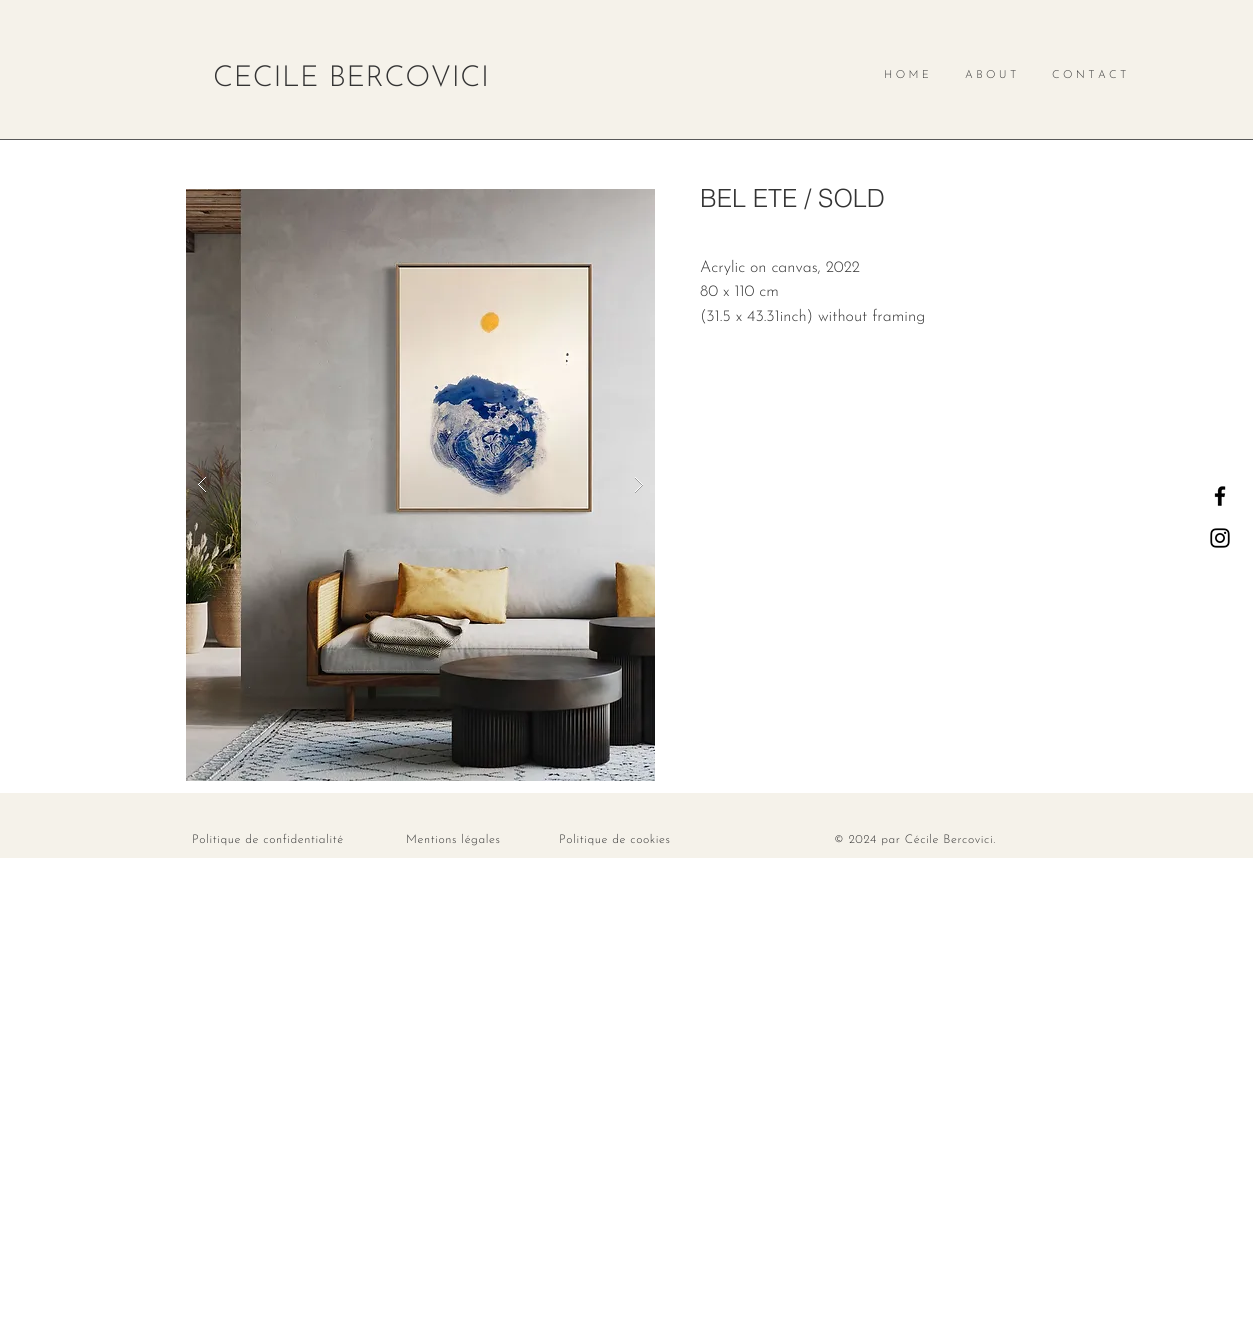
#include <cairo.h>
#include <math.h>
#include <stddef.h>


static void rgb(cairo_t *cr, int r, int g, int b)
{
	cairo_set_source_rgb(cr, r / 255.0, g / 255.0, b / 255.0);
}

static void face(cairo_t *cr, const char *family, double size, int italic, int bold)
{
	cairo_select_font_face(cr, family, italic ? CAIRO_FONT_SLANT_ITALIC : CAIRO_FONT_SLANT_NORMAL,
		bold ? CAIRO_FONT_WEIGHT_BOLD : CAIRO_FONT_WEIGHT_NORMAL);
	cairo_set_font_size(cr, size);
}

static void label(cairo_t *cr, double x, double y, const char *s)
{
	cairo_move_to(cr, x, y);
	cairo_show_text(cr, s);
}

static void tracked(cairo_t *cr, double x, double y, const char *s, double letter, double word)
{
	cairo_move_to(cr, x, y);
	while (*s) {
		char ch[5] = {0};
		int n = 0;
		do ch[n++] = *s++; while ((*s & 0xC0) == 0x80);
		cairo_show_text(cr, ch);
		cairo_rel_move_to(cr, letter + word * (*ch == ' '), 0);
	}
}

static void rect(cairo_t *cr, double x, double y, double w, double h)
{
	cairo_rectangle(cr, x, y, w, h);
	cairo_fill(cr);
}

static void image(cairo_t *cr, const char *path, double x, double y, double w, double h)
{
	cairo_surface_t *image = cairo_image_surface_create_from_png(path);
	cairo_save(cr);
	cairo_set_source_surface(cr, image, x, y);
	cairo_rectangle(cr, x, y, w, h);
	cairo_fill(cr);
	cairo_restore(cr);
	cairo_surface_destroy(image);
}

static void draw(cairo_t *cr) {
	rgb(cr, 255, 255, 255);
	cairo_paint(cr);
	rgb(cr, 89, 89, 89);
	rect(cr, 0, 139, 1253, 1);
	rgb(cr, 245, 242, 234);
	rect(cr, 0, 0, 1253, 139);
	face(cr, "Josefin Sans Thin", 29, 0, 0);
	rgb(cr, 51, 51, 51);
	tracked(cr, 213, 86, "CECILE BERCOVICI", 0.6, 0);
	face(cr, "Josefin Sans Thin", 11, 0, 0);
	label(cr, 884, 78, "H O M E");
	label(cr, 965, 78, "A B O U T");
	label(cr, 1052, 78, "C O N T A C T");
	image(cr, "image0.png", 186, 189, 469, 592);
	image(cr, "image1.png", 198, 477, 8, 16);
	image(cr, "image2.png", 635, 477, 8, 16);
	face(cr, "helvetica Light", 25, 0, 0);
	label(cr, 700, 207, "BEL ETE / SOLD");
	face(cr, "Josefin Sans Thin", 16, 0, 0);
	label(cr, 700, 272, "Acrylic on canvas, 2022");
	label(cr, 700, 296, "80 x 110 cm");
	label(cr, 700, 321, "(31.5 x 43.31inch) without framing");
	image(cr, "image3.png", 1214, 486, 12, 20);
	image(cr, "image4.png", 1210, 528, 20, 20);
	rgb(cr, 245, 242, 234);
	rect(cr, 0, 793, 1253, 65);
	face(cr, "Josefin Sans Thin", 12, 0, 0);
	rgb(cr, 51, 51, 51);
	tracked(cr, 192, 843, "Politique de confidentialité", 0.6, 0);
	tracked(cr, 406, 843, "Mentions légales", 0.6, 0);
	tracked(cr, 559, 843, "Politique de cookies", 0.6, 0);
	tracked(cr, 834, 843, "© 2024 par Cécile Bercovici.", 0.6, 0);
}

int main(void) {
	cairo_surface_t *surface = cairo_image_surface_create(CAIRO_FORMAT_RGB24, 1253, 1333);
	cairo_t *cr = cairo_create(surface);
	cairo_font_options_t *options = cairo_font_options_create();
	cairo_font_options_set_hint_metrics(options, CAIRO_HINT_METRICS_OFF);
	cairo_font_options_set_hint_style(options, CAIRO_HINT_STYLE_NONE);
	cairo_set_font_options(cr, options);
	cairo_set_miter_limit(cr, 4);
	draw(cr);
	cairo_surface_write_to_png(surface, "render.png");
	cairo_font_options_destroy(options);
	cairo_destroy(cr);
	cairo_surface_destroy(surface);
	return 0;
}
